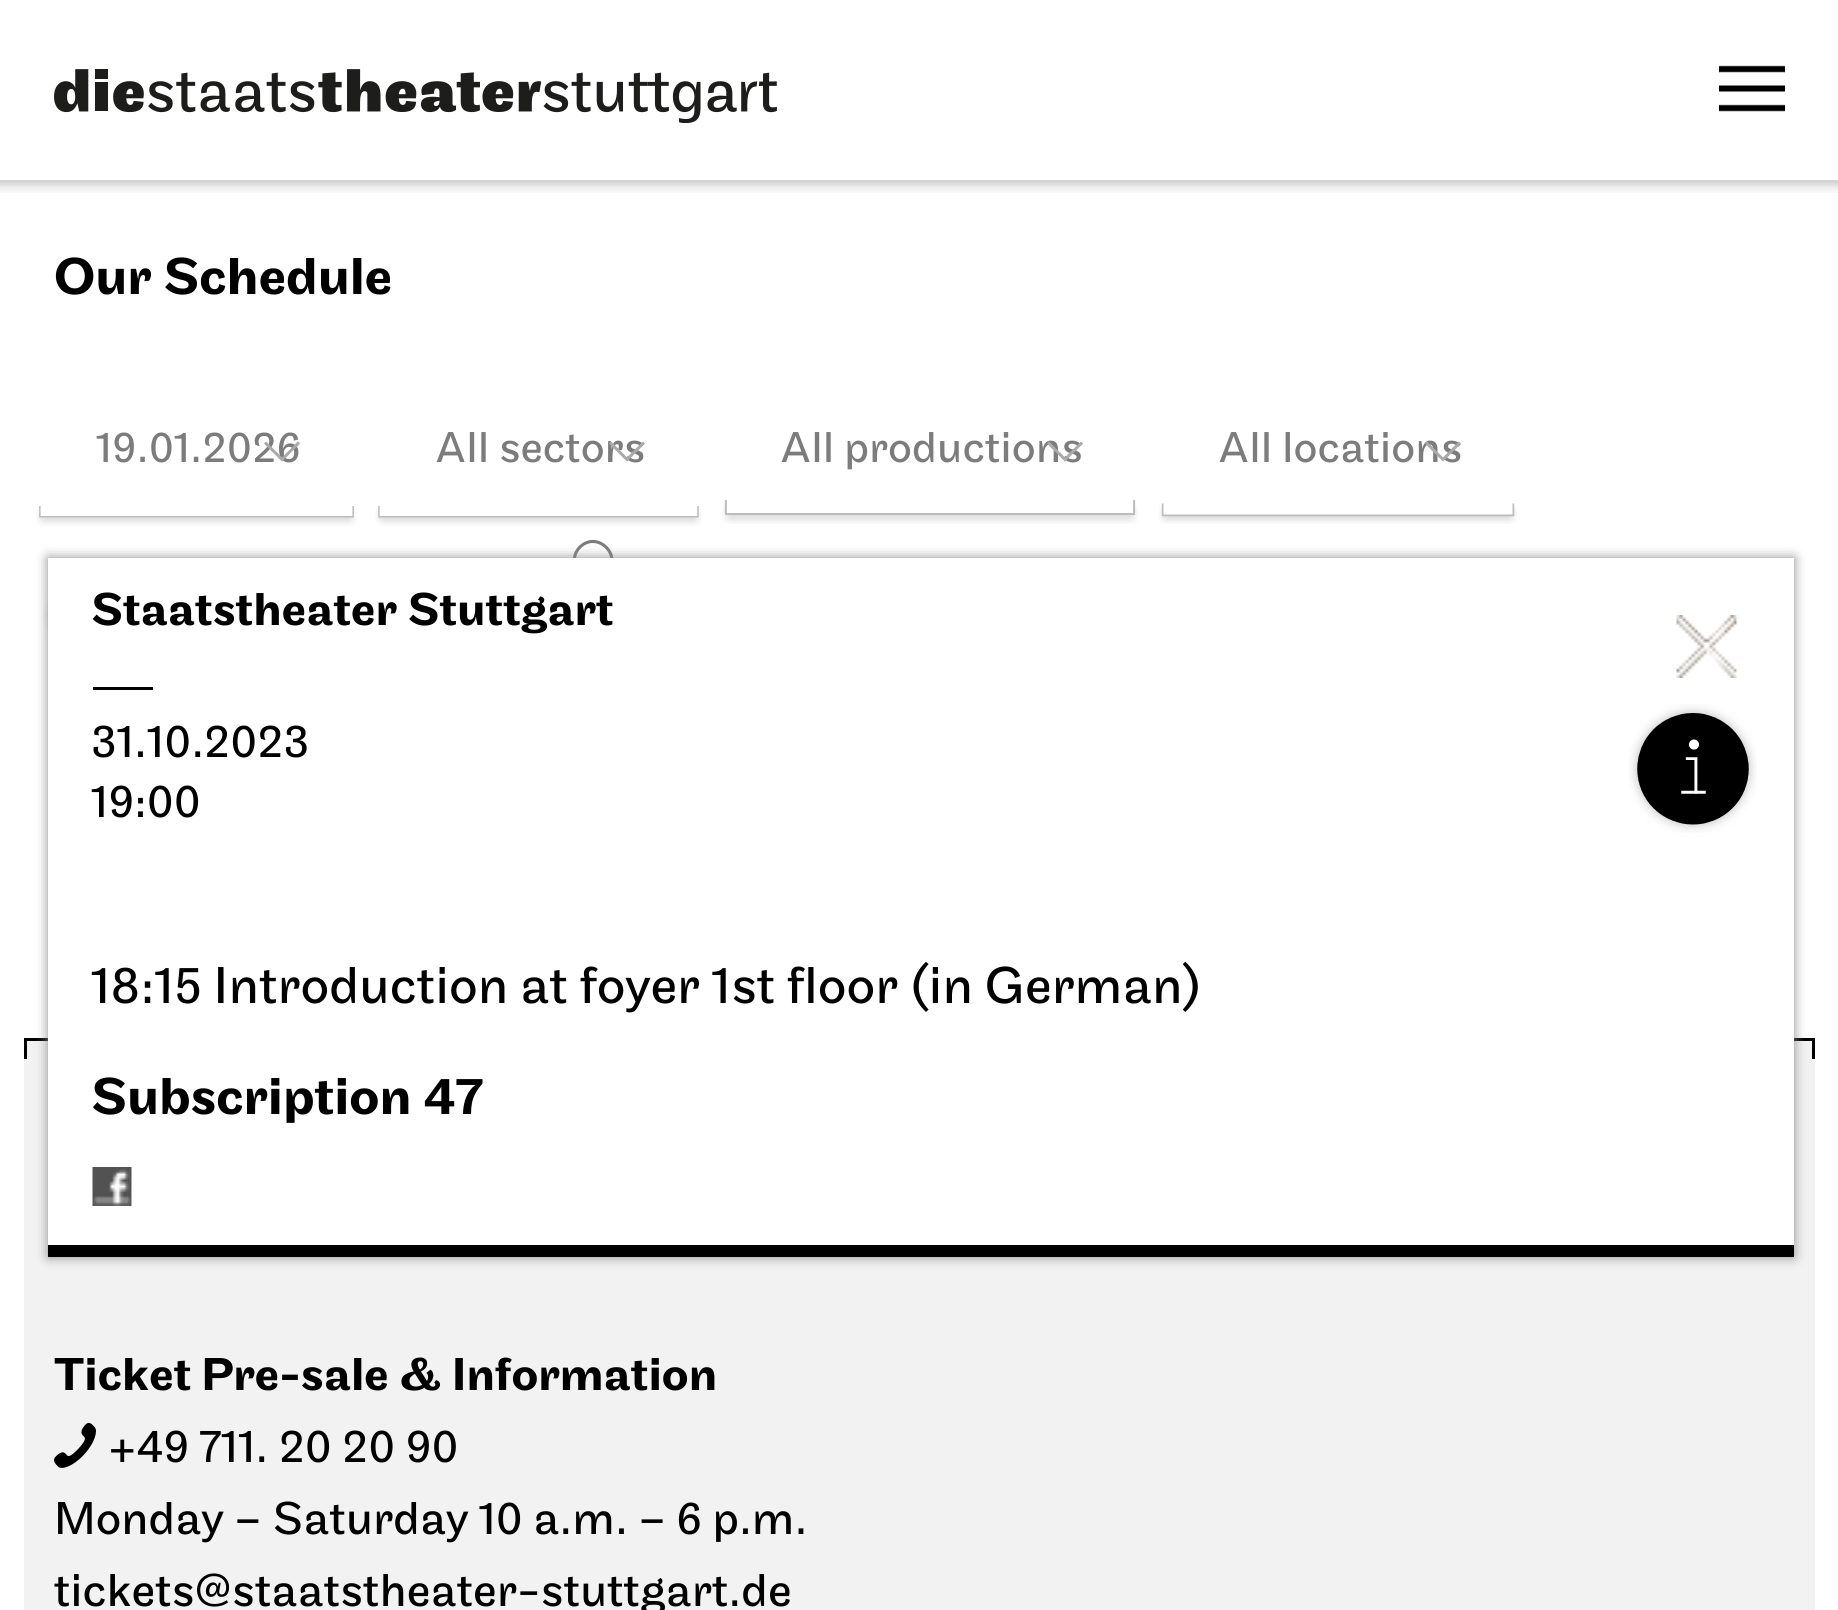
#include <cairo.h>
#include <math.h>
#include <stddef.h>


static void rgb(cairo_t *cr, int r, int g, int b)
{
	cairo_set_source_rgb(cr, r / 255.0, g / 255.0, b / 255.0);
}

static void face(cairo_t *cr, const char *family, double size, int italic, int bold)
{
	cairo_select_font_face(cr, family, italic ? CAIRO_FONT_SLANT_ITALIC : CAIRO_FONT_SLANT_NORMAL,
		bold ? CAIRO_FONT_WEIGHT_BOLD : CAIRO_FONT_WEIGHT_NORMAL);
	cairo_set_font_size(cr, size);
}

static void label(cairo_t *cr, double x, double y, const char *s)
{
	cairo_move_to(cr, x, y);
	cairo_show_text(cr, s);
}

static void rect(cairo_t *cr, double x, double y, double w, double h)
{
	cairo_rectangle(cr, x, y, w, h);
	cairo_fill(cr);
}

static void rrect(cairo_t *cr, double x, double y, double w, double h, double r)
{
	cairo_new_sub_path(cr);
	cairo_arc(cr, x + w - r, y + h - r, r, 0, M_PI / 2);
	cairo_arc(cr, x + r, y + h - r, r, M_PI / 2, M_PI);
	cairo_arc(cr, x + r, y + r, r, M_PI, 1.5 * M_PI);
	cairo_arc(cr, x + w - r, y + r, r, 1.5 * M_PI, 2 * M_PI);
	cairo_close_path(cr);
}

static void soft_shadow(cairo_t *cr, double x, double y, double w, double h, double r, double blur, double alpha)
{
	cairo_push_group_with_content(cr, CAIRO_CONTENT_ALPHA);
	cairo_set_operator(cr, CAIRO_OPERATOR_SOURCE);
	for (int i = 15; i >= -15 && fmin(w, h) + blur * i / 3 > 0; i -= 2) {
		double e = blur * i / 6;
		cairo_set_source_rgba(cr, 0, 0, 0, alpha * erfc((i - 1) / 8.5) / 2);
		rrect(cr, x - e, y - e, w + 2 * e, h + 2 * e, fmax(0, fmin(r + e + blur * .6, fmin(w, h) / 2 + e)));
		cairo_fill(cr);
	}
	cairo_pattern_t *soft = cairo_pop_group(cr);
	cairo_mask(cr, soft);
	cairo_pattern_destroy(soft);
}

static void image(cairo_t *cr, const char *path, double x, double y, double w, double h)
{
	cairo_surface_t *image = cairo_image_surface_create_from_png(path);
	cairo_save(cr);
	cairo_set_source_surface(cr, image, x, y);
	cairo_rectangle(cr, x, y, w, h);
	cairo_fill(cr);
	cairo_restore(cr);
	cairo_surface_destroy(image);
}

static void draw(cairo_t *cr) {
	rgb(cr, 255, 255, 255);
	cairo_paint(cr);
	image(cr, "image0.png", 54, 69, 723, 54);
	image(cr, "image1.png", 1719, 65, 66, 47);
	image(cr, "image2.png", 0, 180, 1838, 13);
	face(cr, "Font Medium", 54, 0, 0);
	rgb(cr, 0, 0, 0);
	label(cr, 54, 294, "Our Schedule");
	image(cr, "image3.png", 36, 506, 321, 20);
	face(cr, "Font", 45, 0, 0);
	rgb(cr, 124, 124, 124);
	label(cr, 96, 462, "19.01.2026");
	cairo_new_path(cr);
	cairo_move_to(cr, 299, 442.5);
	cairo_line_to(cr, 282, 459.5);
	cairo_line_to(cr, 265, 442.5);
	rgb(cr, 170, 170, 170);
	cairo_set_line_width(cr, 3);
	cairo_stroke(cr);
	image(cr, "image4.png", 375, 506, 327, 20);
	rgb(cr, 124, 124, 124);
	label(cr, 435, 462, "All sectors");
	cairo_new_path(cr);
	cairo_move_to(cr, 644, 442.5);
	cairo_line_to(cr, 627, 459.5);
	cairo_line_to(cr, 610, 442.5);
	rgb(cr, 170, 170, 170);
	cairo_stroke(cr);
	image(cr, "image5.png", 722, 500, 416, 24);
	rgb(cr, 124, 124, 124);
	label(cr, 780, 462, "All productions");
	cairo_new_path(cr);
	cairo_move_to(cr, 1082, 442.5);
	cairo_line_to(cr, 1065, 459.5);
	cairo_line_to(cr, 1048, 442.5);
	rgb(cr, 170, 170, 170);
	cairo_stroke(cr);
	image(cr, "image6.png", 1159, 503, 358, 21);
	rgb(cr, 124, 124, 124);
	label(cr, 1218, 462, "All locations");
	cairo_new_path(cr);
	cairo_move_to(cr, 1460, 442.5);
	cairo_line_to(cr, 1443, 459.5);
	cairo_line_to(cr, 1426, 442.5);
	rgb(cr, 170, 170, 170);
	cairo_stroke(cr);
	image(cr, "image7.png", 43, 599, 5, 35);
	cairo_new_path(cr);
	cairo_move_to(cr, 580, 547);
	cairo_curve_to(cr, 597.5, 530, 623.5, 556, 606.5, 573.5);
	cairo_curve_to(cr, 589, 590.5, 563, 564, 580, 547);
	cairo_close_path(cr);
	rgb(cr, 124, 124, 124);
	cairo_set_line_width(cr, 3.1);
	cairo_stroke(cr);
	rgb(cr, 0, 0, 0);
	rect(cr, 24, 1038, 1791, 3);
	rgb(cr, 242, 242, 242);
	rect(cr, 24, 1041, 1791, 569);
	rgb(cr, 0, 0, 0);
	rect(cr, 1812, 1038, 3, 21);
	rect(cr, 24, 1038, 3, 21);
	face(cr, "Font Medium", 48, 0, 0);
	label(cr, 54, 1390, "Ticket Pre-sale & Information");
	image(cr, "image8.png", 54, 1422, 42, 46);
	face(cr, "Font", 48, 0, 0);
	label(cr, 108, 1462, "+49 711. 20 20 90");
	label(cr, 54, 1534, "Monday – Saturday 10 a.m. – 6 p.m.");
	label(cr, 54, 1606, "tickets@staatstheater-stuttgart.de");
	rgb(cr, 139, 139, 139);
	soft_shadow(cr, 48, 558, 1746, 699, 0, 6, 1);
	rgb(cr, 255, 255, 255);
	rect(cr, 48, 558, 1746, 687);
	rgb(cr, 0, 0, 0);
	rect(cr, 48, 1245, 1746, 12);
	face(cr, "Font Medium", 48, 0, 0);
	label(cr, 91, 625, "Staatstheater Stuttgart");
	rect(cr, 93, 687, 60, 3);
	face(cr, "Font", 48, 0, 0);
	label(cr, 91, 757, "31.10.2023");
	label(cr, 91, 817, "19:00");
	image(cr, "image9.png", 1629, 704, 128, 129);
	image(cr, "image10.png", 1676, 615, 61, 63);
	face(cr, "Font", 54, 0, 0);
	label(cr, 91, 1003, "18:15 Introduction at foyer 1st floor (in German)");
	face(cr, "Font Medium", 54, 0, 0);
	label(cr, 91, 1114, "Subscription 47");
	image(cr, "image11.png", 92, 1167, 40, 39);
}

int main(void) {
	cairo_surface_t *surface = cairo_image_surface_create(CAIRO_FORMAT_RGB24, 1838, 1610);
	cairo_t *cr = cairo_create(surface);
	cairo_font_options_t *options = cairo_font_options_create();
	cairo_font_options_set_hint_metrics(options, CAIRO_HINT_METRICS_OFF);
	cairo_font_options_set_hint_style(options, CAIRO_HINT_STYLE_NONE);
	cairo_set_font_options(cr, options);
	cairo_set_miter_limit(cr, 4);
	draw(cr);
	cairo_surface_write_to_png(surface, "render.png");
	cairo_font_options_destroy(options);
	cairo_destroy(cr);
	cairo_surface_destroy(surface);
	return 0;
}
